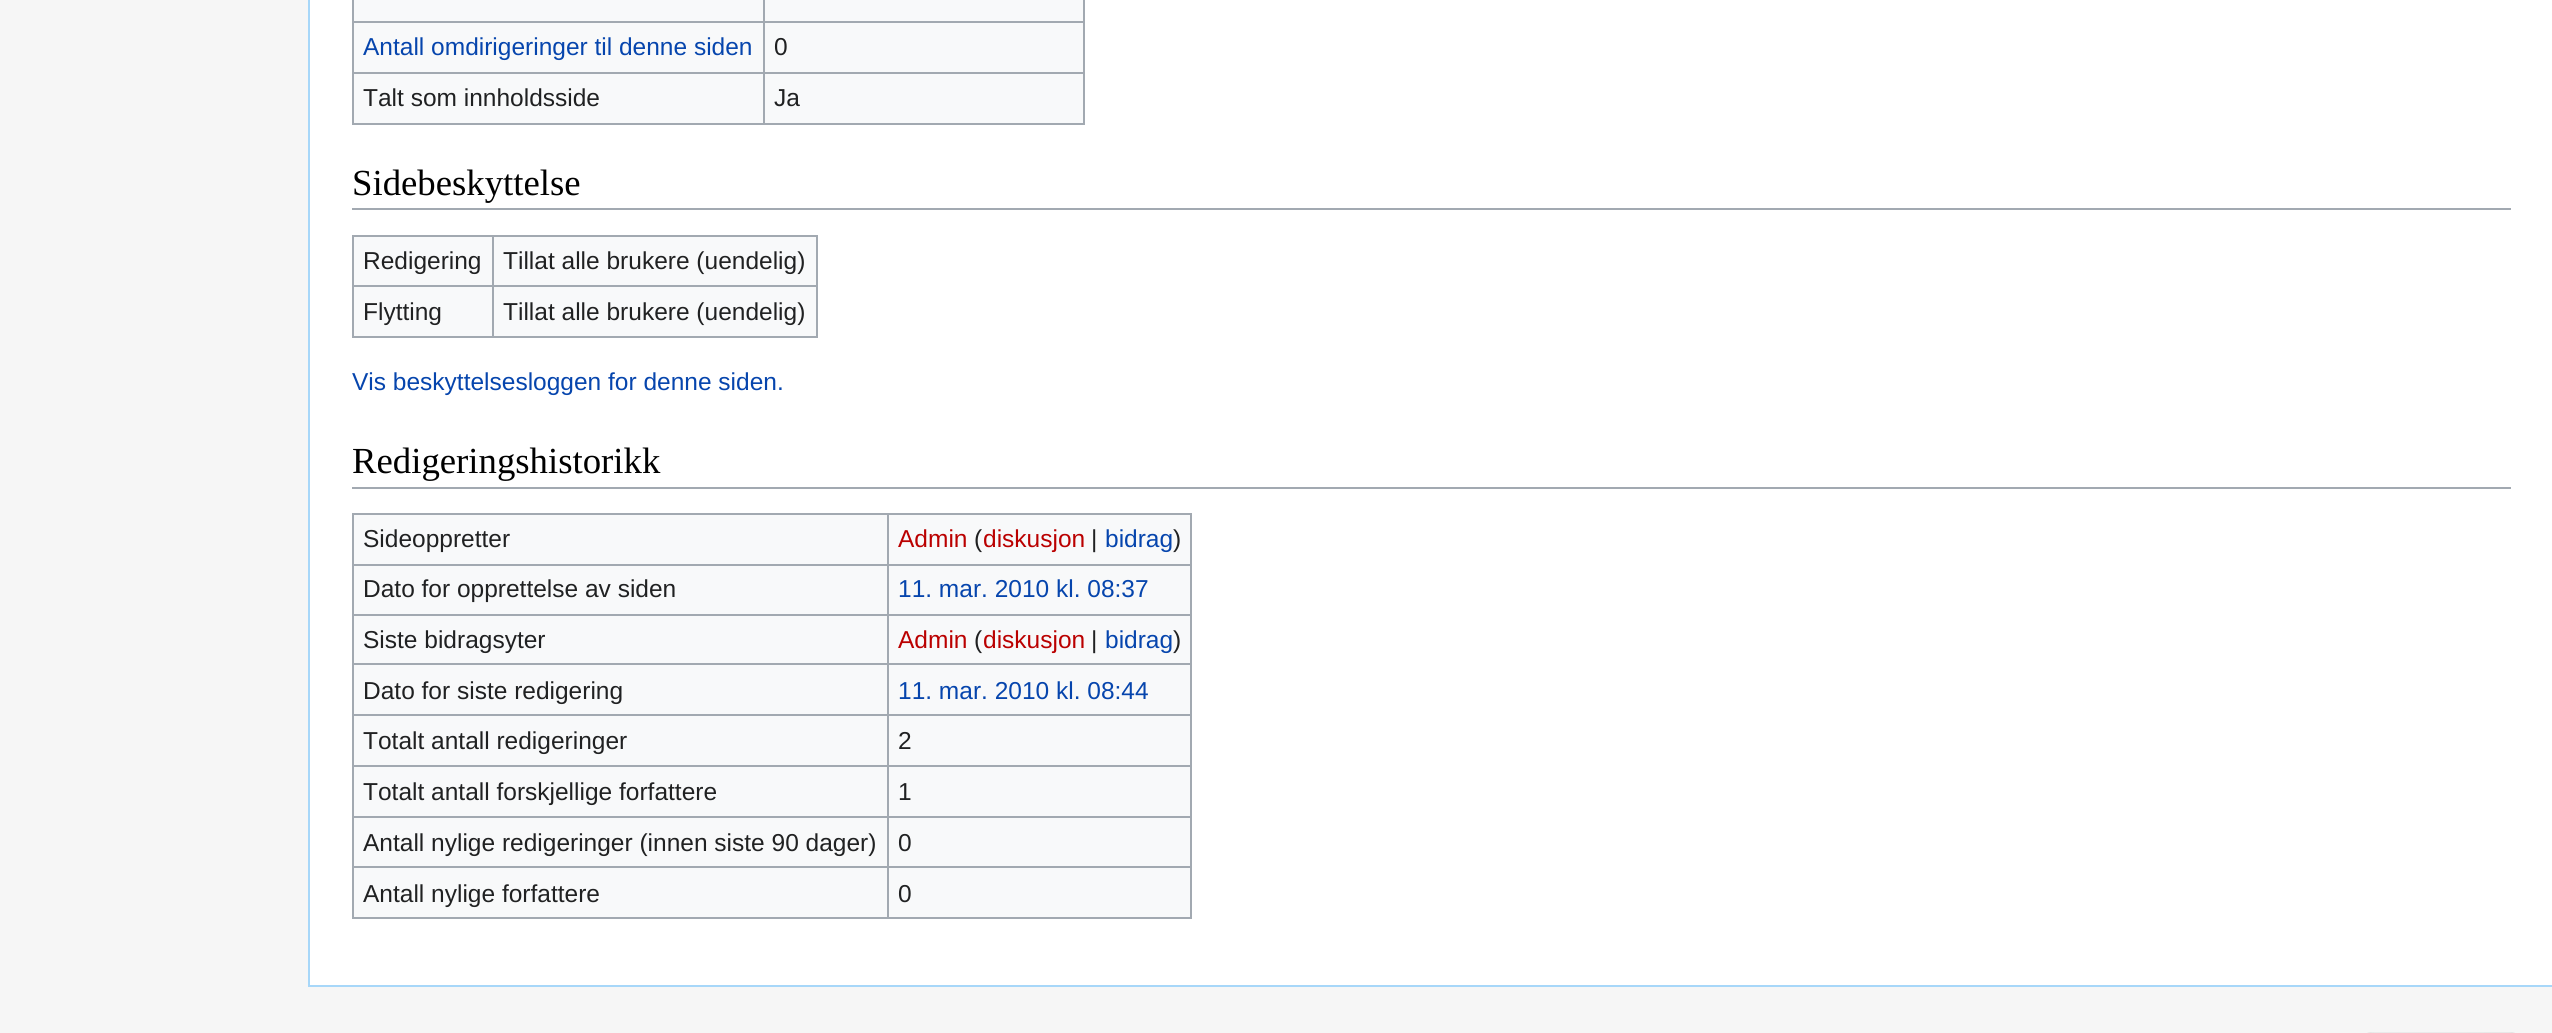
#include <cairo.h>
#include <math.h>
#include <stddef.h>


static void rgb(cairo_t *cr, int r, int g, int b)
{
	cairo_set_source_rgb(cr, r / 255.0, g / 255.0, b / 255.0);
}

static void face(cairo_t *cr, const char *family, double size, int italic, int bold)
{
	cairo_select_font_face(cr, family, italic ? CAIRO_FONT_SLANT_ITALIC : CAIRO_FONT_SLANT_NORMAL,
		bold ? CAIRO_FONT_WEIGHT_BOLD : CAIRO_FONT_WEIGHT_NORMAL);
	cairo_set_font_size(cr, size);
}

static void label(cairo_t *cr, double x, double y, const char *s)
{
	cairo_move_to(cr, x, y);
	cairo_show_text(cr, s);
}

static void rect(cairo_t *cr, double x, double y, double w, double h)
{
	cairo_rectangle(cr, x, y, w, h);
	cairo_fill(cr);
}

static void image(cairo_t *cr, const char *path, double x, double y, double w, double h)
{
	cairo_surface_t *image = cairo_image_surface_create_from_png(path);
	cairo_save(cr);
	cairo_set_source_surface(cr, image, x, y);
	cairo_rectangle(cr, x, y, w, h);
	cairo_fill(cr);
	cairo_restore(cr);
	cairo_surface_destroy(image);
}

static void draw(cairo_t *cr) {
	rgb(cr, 246, 246, 246);
	cairo_paint(cr);
	rgb(cr, 255, 255, 255);
	rect(cr, 310, 0, 2242, 985);
	rgb(cr, 167, 215, 249);
	rect(cr, 308, 985, 2244, 2);
	rect(cr, 308, 0, 2, 987);
	rgb(cr, 248, 249, 250);
	rect(cr, 354, 0, 729, 123);
	rgb(cr, 162, 169, 177);
	rect(cr, 1083, 0, 2, 124);
	rect(cr, 352, 123, 733, 2);
	rect(cr, 352, 0, 2, 124);
	rect(cr, 763, 21, 322, 2);
	rect(cr, 763, 72, 322, 2);
	rect(cr, 763, 72, 2, 52);
	rect(cr, 352, 72, 413, 2);
	rect(cr, 763, 21, 2, 53);
	rect(cr, 352, 21, 413, 2);
	rect(cr, 763, 0, 2, 23);
	face(cr, "Liberation Sans", 24.5, 0, 0);
	rgb(cr, 6, 69, 173);
	label(cr, 363, 55, "Antall omdirigeringer til denne siden");
	rgb(cr, 32, 33, 34);
	label(cr, 774, 55, "0");
	label(cr, 363, 106, "Talt som innholdsside");
	label(cr, 774, 106, "Ja");
	rgb(cr, 162, 169, 177);
	rect(cr, 352, 208, 2159, 2);
	face(cr, "Liberation Serif", 36.75, 0, 0);
	rgb(cr, 0, 0, 0);
	label(cr, 352, 195, "Sidebeskyttelse");
	rgb(cr, 248, 249, 250);
	rect(cr, 354, 237, 462, 99);
	rgb(cr, 162, 169, 177);
	rect(cr, 352, 235, 465, 2);
	rect(cr, 816, 235, 2, 103);
	rect(cr, 352, 336, 465, 2);
	rect(cr, 352, 235, 2, 103);
	face(cr, "Liberation Sans", 24.5, 0, 0);
	rgb(cr, 32, 33, 34);
	label(cr, 363, 269, "Redigering");
	rgb(cr, 162, 169, 177);
	rect(cr, 492, 285, 325, 2);
	rect(cr, 492, 285, 2, 53);
	rect(cr, 352, 285, 142, 2);
	rect(cr, 492, 235, 2, 52);
	rgb(cr, 32, 33, 34);
	label(cr, 503, 269, "Tillat alle brukere (uendelig)");
	label(cr, 363, 320, "Flytting");
	label(cr, 503, 320, "Tillat alle brukere (uendelig)");
	rgb(cr, 6, 69, 173);
	label(cr, 352, 390, "Vis beskyttelsesloggen for denne siden.");
	rgb(cr, 162, 169, 177);
	rect(cr, 352, 487, 2159, 2);
	face(cr, "Liberation Serif", 36.75, 0, 0);
	rgb(cr, 0, 0, 0);
	label(cr, 352, 473, "Redigeringshistorikk");
	rgb(cr, 248, 249, 250);
	rect(cr, 354, 515, 836, 402);
	rgb(cr, 162, 169, 177);
	rect(cr, 352, 513, 840, 2);
	rect(cr, 1190, 513, 2, 406);
	rect(cr, 352, 917, 840, 2);
	rect(cr, 352, 513, 2, 406);
	face(cr, "Liberation Sans", 24.5, 0, 0);
	rgb(cr, 32, 33, 34);
	label(cr, 363, 547, "Sideoppretter");
	rgb(cr, 162, 169, 177);
	rect(cr, 887, 564, 305, 2);
	rect(cr, 887, 614, 305, 2);
	rect(cr, 887, 663, 305, 2);
	rect(cr, 887, 714, 305, 2);
	rect(cr, 887, 765, 305, 2);
	rect(cr, 887, 816, 305, 2);
	rect(cr, 887, 866, 305, 2);
	rect(cr, 887, 866, 2, 53);
	rect(cr, 352, 866, 537, 2);
	rect(cr, 887, 816, 2, 52);
	rect(cr, 352, 816, 537, 2);
	rect(cr, 887, 765, 2, 52);
	rect(cr, 352, 765, 537, 2);
	rect(cr, 887, 714, 2, 53);
	rect(cr, 352, 714, 537, 2);
	rect(cr, 887, 663, 2, 53);
	rect(cr, 352, 663, 537, 2);
	rect(cr, 887, 614, 2, 51);
	rect(cr, 352, 614, 537, 2);
	rect(cr, 887, 564, 2, 52);
	rect(cr, 352, 564, 537, 2);
	rect(cr, 887, 513, 2, 52);
	rgb(cr, 186, 0, 0);
	label(cr, 898, 547, "Admin");
	rgb(cr, 32, 33, 34);
	label(cr, 974, 547, "(");
	rgb(cr, 186, 0, 0);
	label(cr, 983, 547, "diskusjon");
	rgb(cr, 32, 33, 34);
	label(cr, 1091, 547, "|");
	rgb(cr, 6, 69, 173);
	label(cr, 1105, 547, "bidrag");
	rgb(cr, 32, 33, 34);
	label(cr, 1173, 547, ")");
	label(cr, 363, 597, "Dato for opprettelse av siden");
	rgb(cr, 6, 69, 173);
	label(cr, 898, 597, "11. mar. 2010 kl. 08:37");
	rgb(cr, 32, 33, 34);
	label(cr, 363, 648, "Siste bidragsyter");
	rgb(cr, 186, 0, 0);
	label(cr, 898, 648, "Admin");
	rgb(cr, 32, 33, 34);
	label(cr, 974, 648, "(");
	rgb(cr, 186, 0, 0);
	label(cr, 983, 648, "diskusjon");
	rgb(cr, 32, 33, 34);
	label(cr, 1091, 648, "|");
	rgb(cr, 6, 69, 173);
	label(cr, 1105, 648, "bidrag");
	rgb(cr, 32, 33, 34);
	label(cr, 1173, 648, ")");
	label(cr, 363, 699, "Dato for siste redigering");
	rgb(cr, 6, 69, 173);
	label(cr, 898, 699, "11. mar. 2010 kl. 08:44");
	rgb(cr, 32, 33, 34);
	label(cr, 363, 749, "Totalt antall redigeringer");
	label(cr, 898, 749, "2");
	label(cr, 363, 800, "Totalt antall forskjellige forfattere");
	label(cr, 898, 800, "1");
	label(cr, 363, 851, "Antall nylige redigeringer (innen siste 90 dager)");
	label(cr, 898, 851, "0");
	label(cr, 363, 902, "Antall nylige forfattere");
	label(cr, 898, 902, "0");
	image(cr, "image0.png", 2367, 1032, 148, 1);
}

int main(void) {
	cairo_surface_t *surface = cairo_image_surface_create(CAIRO_FORMAT_RGB24, 2552, 1033);
	cairo_t *cr = cairo_create(surface);
	cairo_font_options_t *options = cairo_font_options_create();
	cairo_font_options_set_hint_metrics(options, CAIRO_HINT_METRICS_OFF);
	cairo_font_options_set_hint_style(options, CAIRO_HINT_STYLE_NONE);
	cairo_set_font_options(cr, options);
	cairo_set_miter_limit(cr, 4);
	draw(cr);
	cairo_surface_write_to_png(surface, "render.png");
	cairo_font_options_destroy(options);
	cairo_destroy(cr);
	cairo_surface_destroy(surface);
	return 0;
}
